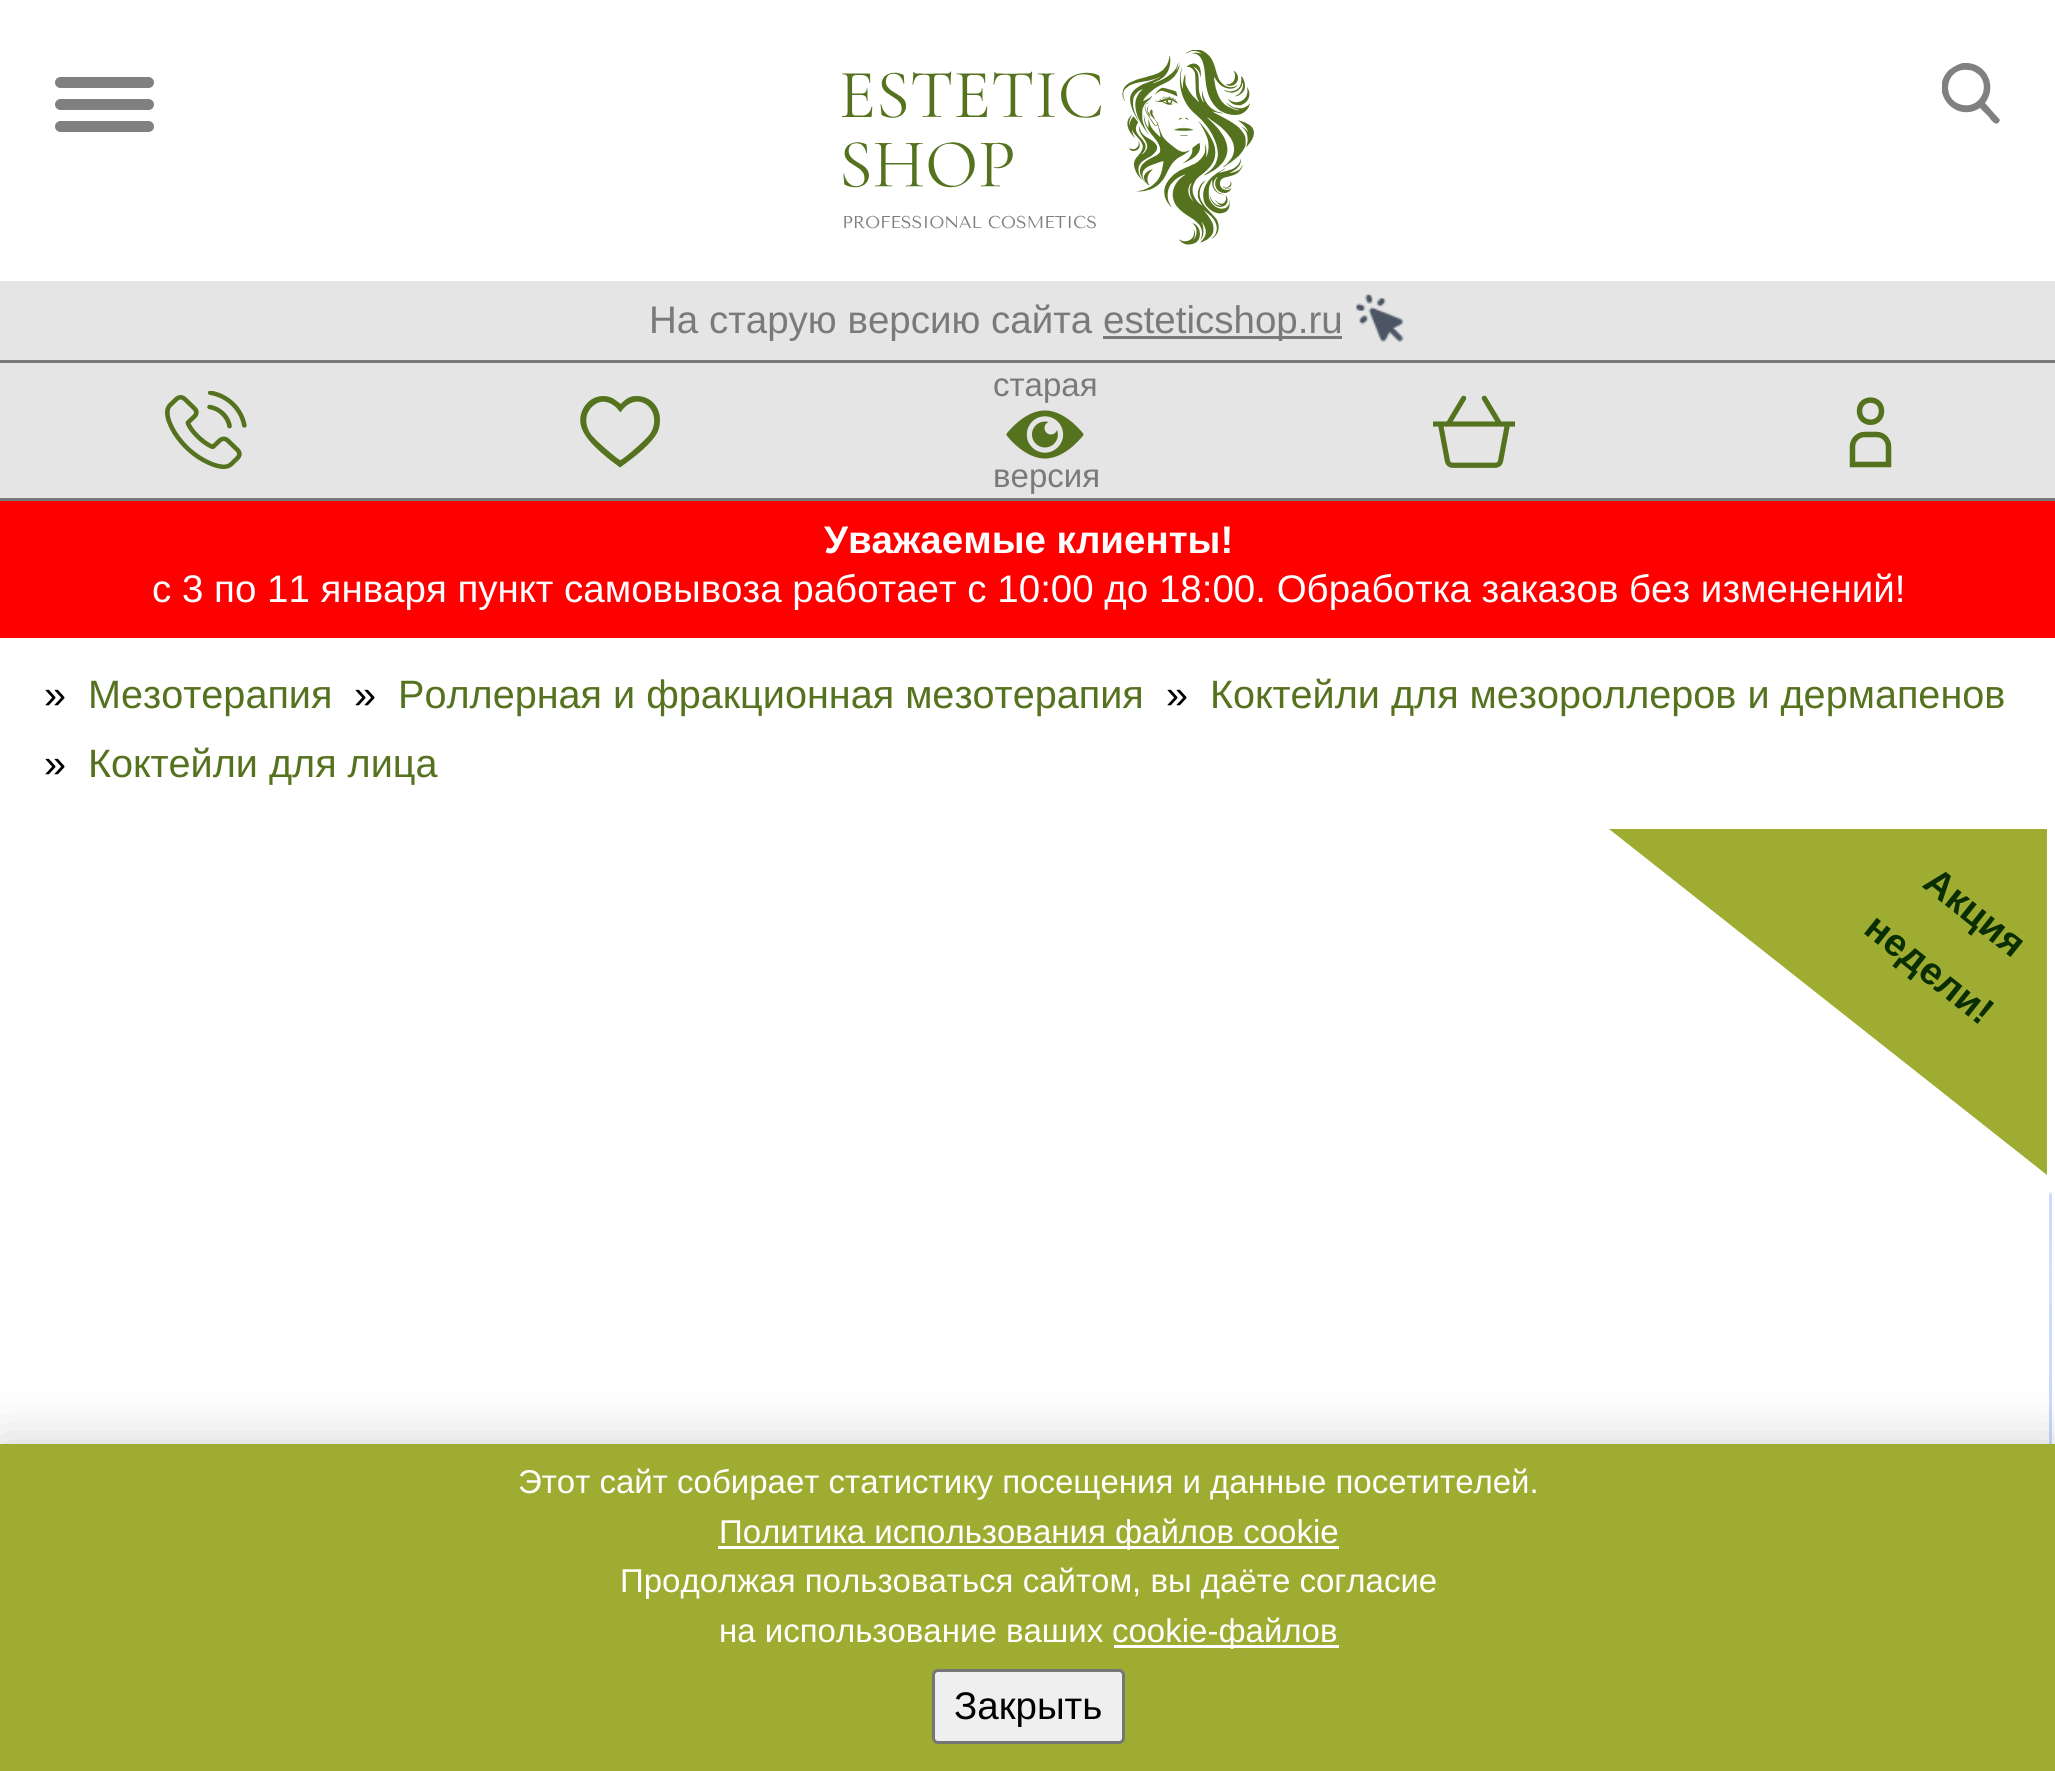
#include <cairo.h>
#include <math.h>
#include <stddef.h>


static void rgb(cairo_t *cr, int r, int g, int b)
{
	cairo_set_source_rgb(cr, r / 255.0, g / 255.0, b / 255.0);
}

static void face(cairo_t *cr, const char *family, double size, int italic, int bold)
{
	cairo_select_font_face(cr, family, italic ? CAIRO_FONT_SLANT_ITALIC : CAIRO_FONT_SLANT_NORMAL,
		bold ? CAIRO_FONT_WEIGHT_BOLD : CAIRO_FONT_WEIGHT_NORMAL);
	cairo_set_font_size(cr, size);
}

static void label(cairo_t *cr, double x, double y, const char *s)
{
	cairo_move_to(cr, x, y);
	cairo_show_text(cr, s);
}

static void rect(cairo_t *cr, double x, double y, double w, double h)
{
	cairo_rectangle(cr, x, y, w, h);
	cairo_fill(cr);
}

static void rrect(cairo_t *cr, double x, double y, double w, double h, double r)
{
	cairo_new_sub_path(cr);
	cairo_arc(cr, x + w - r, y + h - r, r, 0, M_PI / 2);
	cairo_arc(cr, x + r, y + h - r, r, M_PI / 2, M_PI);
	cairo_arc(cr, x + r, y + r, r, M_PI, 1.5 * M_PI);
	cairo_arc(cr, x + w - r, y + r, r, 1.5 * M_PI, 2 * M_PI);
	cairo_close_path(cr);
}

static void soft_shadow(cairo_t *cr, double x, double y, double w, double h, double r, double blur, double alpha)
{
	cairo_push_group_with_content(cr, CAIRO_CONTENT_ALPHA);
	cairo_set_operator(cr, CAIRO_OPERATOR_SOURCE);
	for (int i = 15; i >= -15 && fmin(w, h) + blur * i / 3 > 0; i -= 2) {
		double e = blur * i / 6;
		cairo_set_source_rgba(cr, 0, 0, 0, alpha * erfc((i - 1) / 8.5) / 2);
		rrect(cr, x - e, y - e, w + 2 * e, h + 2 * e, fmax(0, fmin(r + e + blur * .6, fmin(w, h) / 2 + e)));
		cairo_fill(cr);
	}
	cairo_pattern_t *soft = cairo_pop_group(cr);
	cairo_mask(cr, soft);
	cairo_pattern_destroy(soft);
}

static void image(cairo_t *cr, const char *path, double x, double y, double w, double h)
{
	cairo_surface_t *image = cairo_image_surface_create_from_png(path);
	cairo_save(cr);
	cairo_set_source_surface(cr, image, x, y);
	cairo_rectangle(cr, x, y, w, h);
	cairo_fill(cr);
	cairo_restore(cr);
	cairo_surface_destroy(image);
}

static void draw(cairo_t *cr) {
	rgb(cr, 255, 255, 255);
	cairo_paint(cr);
	rgb(cr, 128, 128, 128);
	rrect(cr, 55, 77, 99, 11, 5.5);
	cairo_fill(cr);
	rrect(cr, 55, 99, 99, 11, 5.5);
	cairo_fill(cr);
	rrect(cr, 55, 121, 99, 11, 5.5);
	cairo_fill(cr);
	image(cr, "image0.png", 842, 50, 412, 195);
	cairo_save(cr);
	cairo_rectangle(cr, 1942, 63, 60, 61);
	cairo_clip(cr);
	cairo_set_fill_rule(cr, CAIRO_FILL_RULE_EVEN_ODD);
	cairo_new_path(cr);
	cairo_move_to(cr, 1963, 63);
	cairo_curve_to(cr, 1958, 64, 1953, 67, 1949, 70);
	cairo_curve_to(cr, 1928, 91, 1955, 124, 1980, 108);
	cairo_line_to(cr, 1989, 117);
	cairo_curve_to(cr, 1990, 119, 1996, 127, 1999, 122);
	cairo_line_to(cr, 2000, 120);
	cairo_line_to(cr, 1985, 103);
	cairo_curve_to(cr, 1998, 86, 1986, 61, 1963, 63);
	cairo_close_path(cr);
	cairo_move_to(cr, 1968, 70);
	cairo_curve_to(cr, 1973, 70, 1977, 73, 1980, 76);
	cairo_curve_to(cr, 1990, 89, 1979, 108, 1963, 105);
	cairo_curve_to(cr, 1940, 101, 1945, 67, 1968, 70);
	cairo_close_path(cr);
	cairo_fill(cr);
	cairo_restore(cr);
	rgb(cr, 229, 229, 229);
	rect(cr, 0, 281, 2055, 79);
	rgb(cr, 122, 122, 122);
	rect(cr, 0, 360, 2055, 3);
	face(cr, "Liberation Sans", 38.5, 0, 0);
	label(cr, 649, 333, "На старую версию сайта");
	rect(cr, 1103, 336, 239, 3);
	label(cr, 1103, 333, "esteticshop.ru");
	image(cr, "image1.png", 1355, 293, 49, 49);
	rgb(cr, 229, 229, 229);
	rect(cr, 0, 363, 2055, 135);
	rgb(cr, 122, 122, 122);
	rect(cr, 0, 498, 2055, 3);
	image(cr, "image2.png", 165, 391, 82, 78);
	image(cr, "image3.png", 580, 396, 80, 72);
	face(cr, "Liberation Sans", 33, 0, 0);
	label(cr, 993, 396, "старая");
	image(cr, "image4.png", 1006, 410, 78, 49);
	label(cr, 993, 487, "версия");
	image(cr, "image5.png", 1433, 395, 82, 73);
	cairo_new_path(cr);
	cairo_move_to(cr, 1881.5, 411);
	cairo_curve_to(cr, 1881.5, 426, 1859.5, 426, 1859.5, 411);
	cairo_curve_to(cr, 1859.5, 396.5, 1881.5, 396.5, 1881.5, 411);
	cairo_close_path(cr);
	rgb(cr, 85, 114, 30);
	cairo_set_line_width(cr, 5.5);
	cairo_stroke(cr);
	cairo_new_path(cr);
	cairo_move_to(cr, 1864.5, 434.5);
	cairo_line_to(cr, 1876.5, 434.5);
	cairo_curve_to(cr, 1883.5, 434.5, 1888.5, 440, 1888.5, 446.5);
	cairo_line_to(cr, 1888.5, 464.5);
	cairo_line_to(cr, 1852.5, 464.5);
	cairo_line_to(cr, 1852.5, 446.5);
	cairo_curve_to(cr, 1852.5, 440, 1858, 434.5, 1864.5, 434.5);
	cairo_close_path(cr);
	cairo_stroke(cr);
	rgb(cr, 255, 0, 0);
	rect(cr, 0, 501, 2055, 137);
	face(cr, "Liberation Sans", 38.5, 0, 1);
	rgb(cr, 255, 255, 255);
	label(cr, 824, 553, "Уважаемые клиенты!");
	face(cr, "Liberation Sans", 38.5, 0, 0);
	label(cr, 152, 602, "с 3 по 11 января пункт самовывоза работает с 10:00 до 18:00. Обработка заказов без изменений!");
	face(cr, "Liberation Sans", 39.6, 0, 0);
	rgb(cr, 0, 0, 0);
	label(cr, 44, 708, "»");
	rgb(cr, 85, 114, 30);
	label(cr, 88, 708, "Мезотерапия");
	rgb(cr, 0, 0, 0);
	label(cr, 354, 708, "»");
	rgb(cr, 85, 114, 30);
	label(cr, 398, 708, "Роллерная и фракционная мезотерапия");
	rgb(cr, 0, 0, 0);
	label(cr, 1166, 708, "»");
	rgb(cr, 85, 114, 30);
	label(cr, 1210, 708, "Коктейли для мезороллеров и дермапенов");
	rgb(cr, 0, 0, 0);
	label(cr, 44, 777, "»");
	rgb(cr, 85, 114, 30);
	label(cr, 88, 777, "Коктейли для лица");
	rgb(cr, 158, 172, 49);
	cairo_new_path(cr);
	cairo_move_to(cr, 2047, 829);
	cairo_line_to(cr, 2047, 1175);
	cairo_line_to(cr, 1609, 829);
	cairo_close_path(cr);
	cairo_fill(cr);
	face(cr, "Liberation Sans", 38.5, 0, 1);
	rgb(cr, 9, 46, 2);
	cairo_save(cr);
	cairo_translate(cr, 1921, 886);
	cairo_rotate(cr, 38.5 * M_PI / 180);
	label(cr, 0, 0, "Акция");
	cairo_restore(cr);
	cairo_save(cr);
	cairo_translate(cr, 1862, 932);
	cairo_rotate(cr, 38.5 * M_PI / 180);
	label(cr, 0, 0, "недели!");
	cairo_restore(cr);
	image(cr, "image6.png", 2049, 1191, 3, 253);
	rgb(cr, 0, 0, 0);
	soft_shadow(cr, 0, 1444, 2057, 327, 0, 27.5, 0.2);
	rgb(cr, 158, 172, 49);
	rect(cr, 0, 1444, 2055, 327);
	face(cr, "Liberation Sans", 33, 0, 0);
	rgb(cr, 255, 255, 255);
	label(cr, 518, 1493, "Этот сайт собирает статистику посещения и данные посетителей.");
	rect(cr, 718, 1546, 621, 3);
	label(cr, 719, 1543, "Политика использования файлов cookie");
	label(cr, 620, 1592, "Продолжая пользоваться сайтом, вы даёте согласие");
	label(cr, 719, 1642, "на использование ваших");
	rect(cr, 1114, 1645, 225, 3);
	label(cr, 1112, 1642, "cookie-файлов");
	rgb(cr, 239, 239, 239);
	rrect(cr, 933.5, 1670.5, 190, 72, 4.5);
	cairo_fill_preserve(cr);
	rgb(cr, 118, 118, 118);
	cairo_set_line_width(cr, 3);
	cairo_stroke(cr);
	face(cr, "Liberation Sans", 38.5, 0, 0);
	rgb(cr, 0, 0, 0);
	label(cr, 954, 1719, "Закрыть");
}

int main(void) {
	cairo_surface_t *surface = cairo_image_surface_create(CAIRO_FORMAT_RGB24, 2055, 1771);
	cairo_t *cr = cairo_create(surface);
	cairo_font_options_t *options = cairo_font_options_create();
	cairo_font_options_set_hint_metrics(options, CAIRO_HINT_METRICS_OFF);
	cairo_font_options_set_hint_style(options, CAIRO_HINT_STYLE_NONE);
	cairo_set_font_options(cr, options);
	cairo_set_miter_limit(cr, 4);
	draw(cr);
	cairo_surface_write_to_png(surface, "render.png");
	cairo_font_options_destroy(options);
	cairo_destroy(cr);
	cairo_surface_destroy(surface);
	return 0;
}
